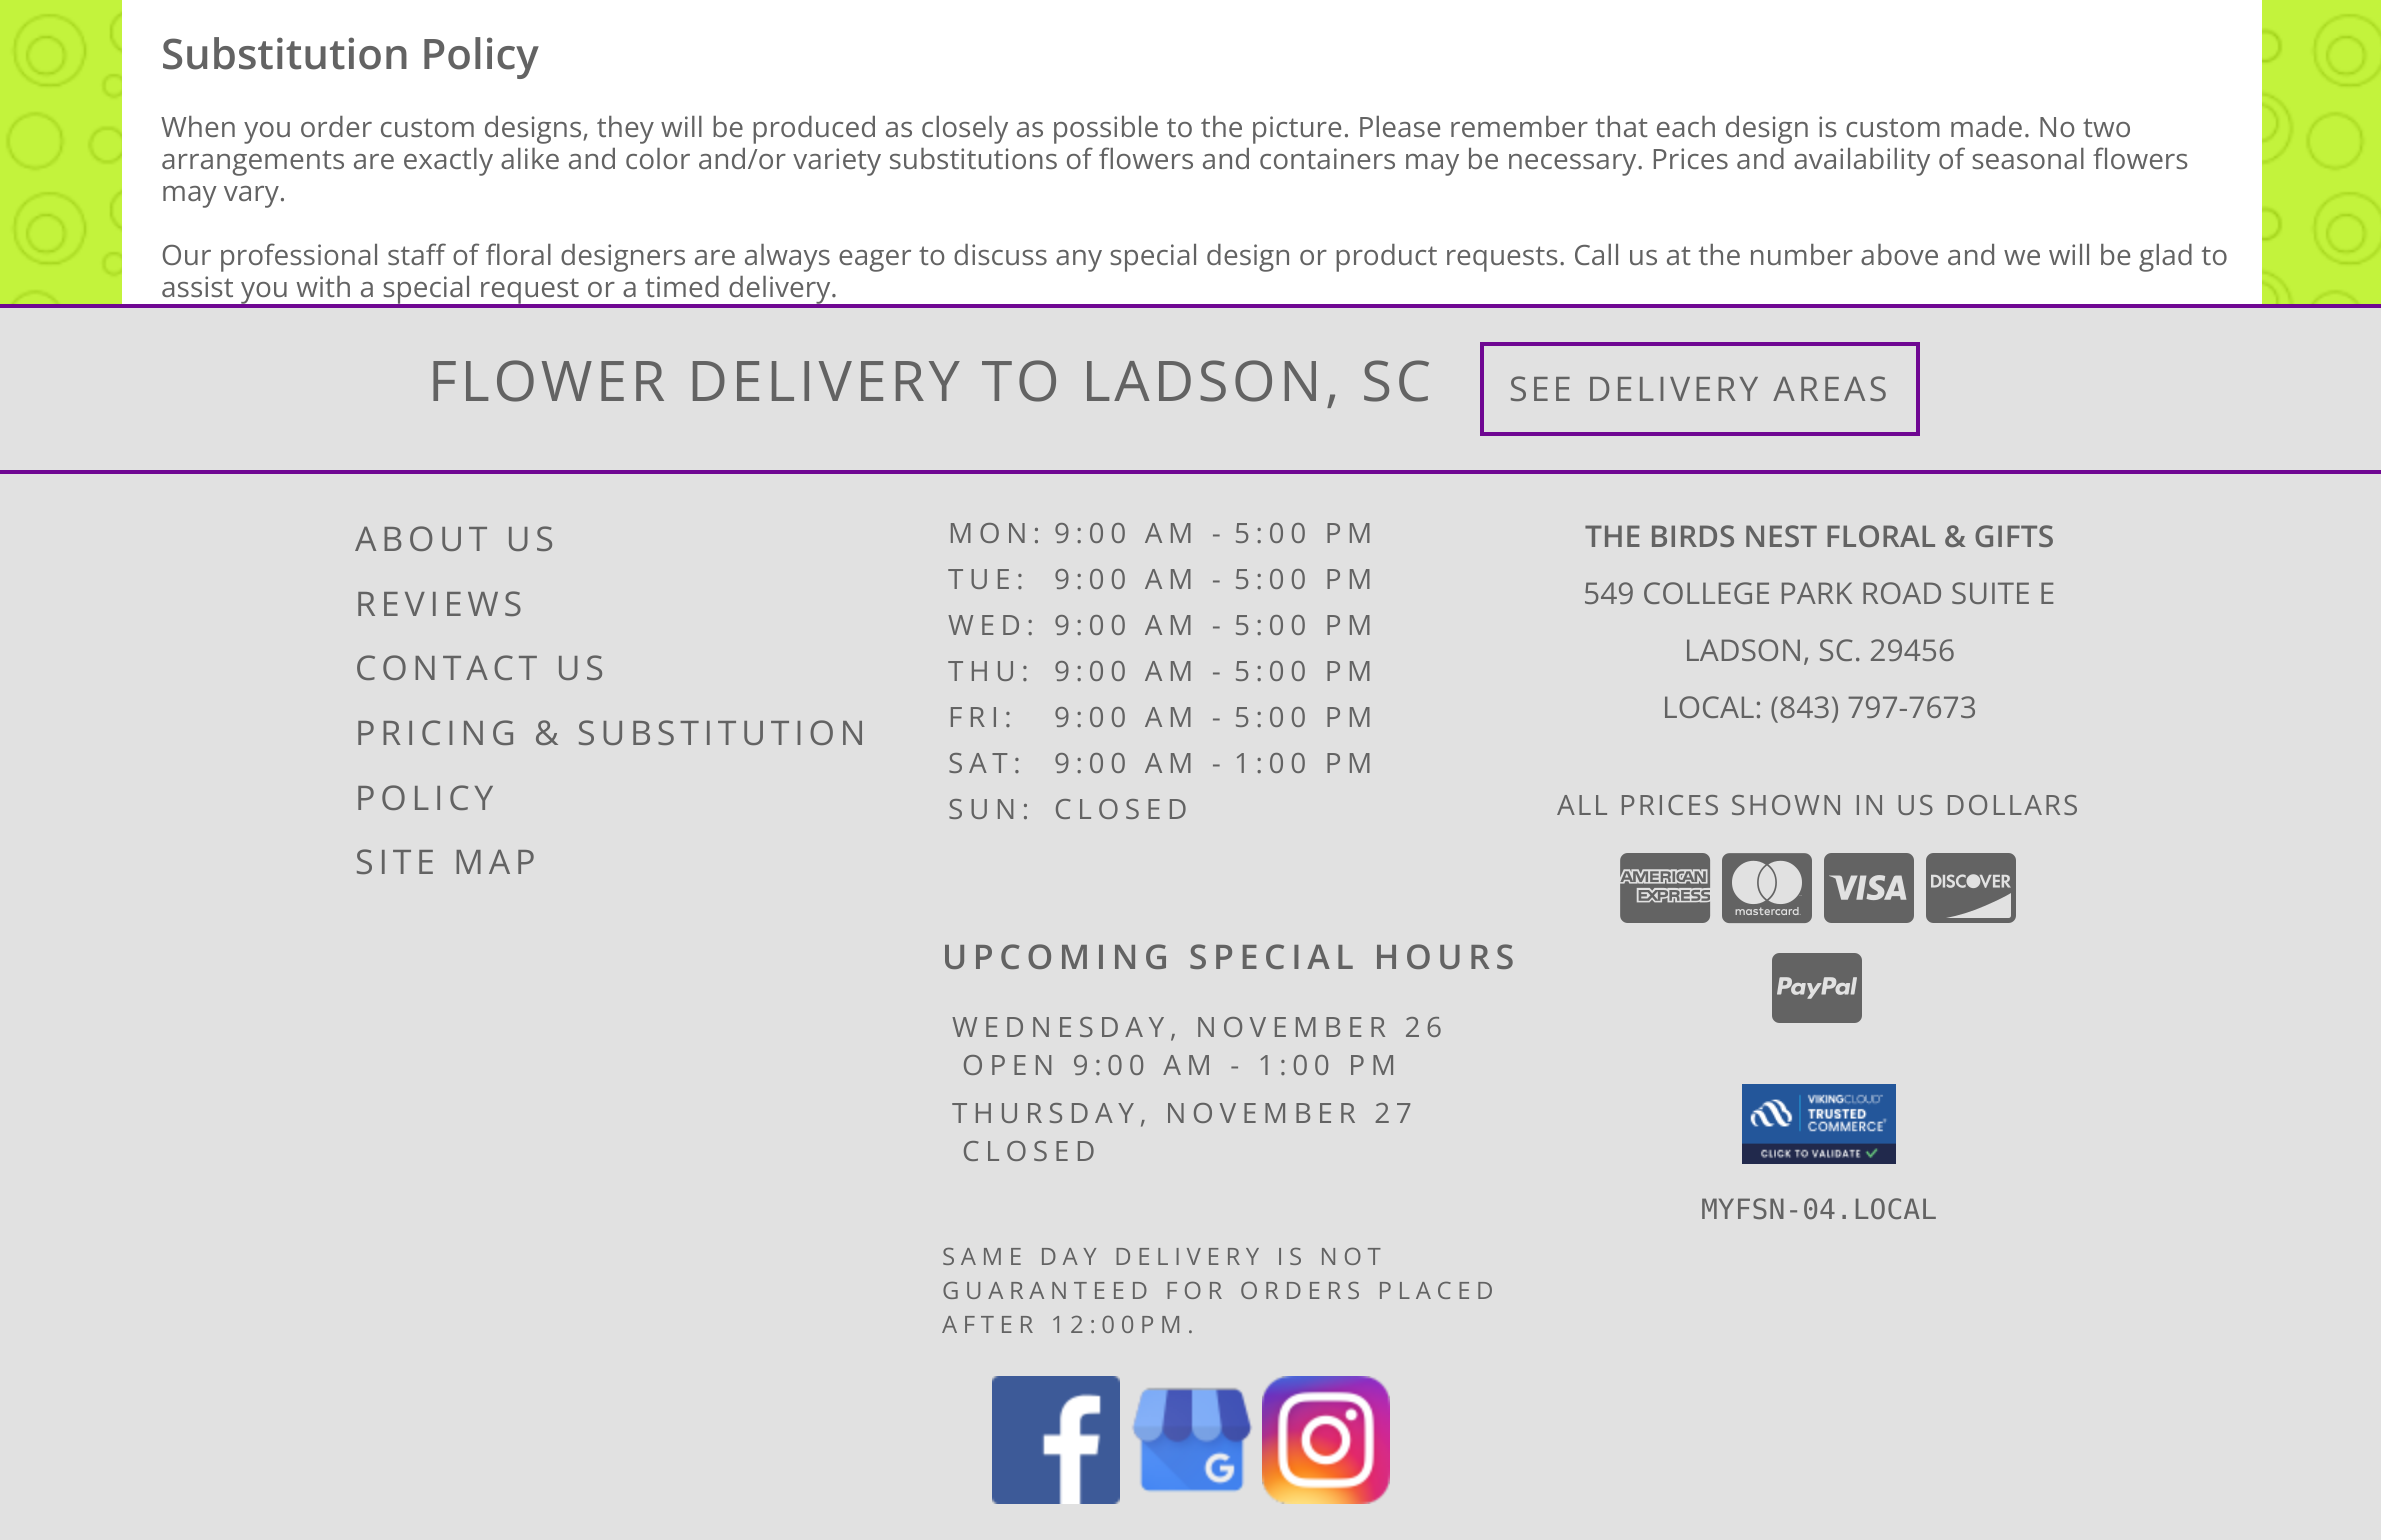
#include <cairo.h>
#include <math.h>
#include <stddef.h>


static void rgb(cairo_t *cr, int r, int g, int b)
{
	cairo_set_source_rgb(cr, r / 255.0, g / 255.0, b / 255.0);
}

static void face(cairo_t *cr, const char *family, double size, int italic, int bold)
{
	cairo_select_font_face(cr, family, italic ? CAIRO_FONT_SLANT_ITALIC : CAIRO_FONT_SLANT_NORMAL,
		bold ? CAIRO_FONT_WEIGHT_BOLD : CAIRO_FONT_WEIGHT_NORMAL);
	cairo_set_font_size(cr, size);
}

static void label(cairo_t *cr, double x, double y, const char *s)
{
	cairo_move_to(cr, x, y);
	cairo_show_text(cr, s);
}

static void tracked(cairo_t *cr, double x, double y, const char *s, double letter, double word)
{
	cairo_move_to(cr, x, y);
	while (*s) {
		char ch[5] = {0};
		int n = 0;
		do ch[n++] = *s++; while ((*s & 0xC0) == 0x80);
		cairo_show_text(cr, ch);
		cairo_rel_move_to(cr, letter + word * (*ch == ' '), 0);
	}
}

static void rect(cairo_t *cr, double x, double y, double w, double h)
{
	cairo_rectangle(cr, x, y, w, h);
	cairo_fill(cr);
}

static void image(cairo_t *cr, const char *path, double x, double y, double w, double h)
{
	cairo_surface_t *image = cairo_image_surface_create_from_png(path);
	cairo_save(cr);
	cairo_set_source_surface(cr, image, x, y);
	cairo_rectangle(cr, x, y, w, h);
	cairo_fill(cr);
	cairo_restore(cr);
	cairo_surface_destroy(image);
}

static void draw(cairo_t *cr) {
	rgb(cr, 181, 240, 15);
	cairo_paint(cr);
	image(cr, "image0.png", 0, 0, 2381, 304);
	rgb(cr, 255, 255, 255);
	rect(cr, 122, 0, 2140, 304);
	face(cr, "Open Sans SemiBold", 42, 0, 0);
	rgb(cr, 99, 99, 99);
	label(cr, 161, 69, "Substitution Policy");
	face(cr, "Open Sans", 28, 0, 0);
	label(cr, 161, 137, "When you order custom designs, they will be produced as closely as possible to the picture. Please remember that each design is custom made. No two");
	label(cr, 161, 169, "arrangements are exactly alike and color and/or variety substitutions of flowers and containers may be necessary. Prices and availability of seasonal flowers");
	label(cr, 161, 201, "may vary.");
	label(cr, 161, 265, "Our professional staff of floral designers are always eager to discuss any special design or product requests. Call us at the number above and we will be glad to");
	label(cr, 161, 297, "assist you with a special request or a timed delivery.");
	rgb(cr, 225, 225, 225);
	rect(cr, 0, 308, 2381, 162);
	rgb(cr, 111, 7, 146);
	rect(cr, 0, 304, 2381, 4);
	rect(cr, 0, 470, 2381, 4);
	face(cr, "Open Sans", 56, 0, 0);
	rgb(cr, 99, 99, 99);
	tracked(cr, 428, 401, "FLOWER DELIVERY TO LADSON, SC", 3.65, 0);
	cairo_rectangle(cr, 1482, 344, 436, 90);
	rgb(cr, 111, 7, 146);
	cairo_set_line_width(cr, 4);
	cairo_stroke(cr);
	face(cr, "Open Sans", 34, 0, 0);
	rgb(cr, 99, 99, 99);
	tracked(cr, 1509, 401, "SEE DELIVERY AREAS", 3.1, 0);
	rgb(cr, 225, 225, 225);
	rect(cr, 0, 474, 2381, 1066);
	rgb(cr, 99, 99, 99);
	tracked(cr, 355, 551, "ABOUT US", 4.75, 0);
	tracked(cr, 355, 616, "REVIEWS", 4.75, 0);
	tracked(cr, 355, 680, "CONTACT US", 4.75, 0);
	tracked(cr, 355, 745, "PRICING & SUBSTITUTION", 4.75, 0);
	tracked(cr, 355, 810, "POLICY", 4.75, 0);
	tracked(cr, 355, 874, "SITE MAP", 4.75, 0);
	face(cr, "Open Sans", 28, 0, 0);
	tracked(cr, 948, 543, "MON:", 5.6, 0);
	tracked(cr, 1054, 543, "9:00 AM -", 5.6, 0);
	tracked(cr, 1234, 543, "5:00 PM", 5.6, 0);
	tracked(cr, 948, 589, "TUE:", 5.6, 0);
	tracked(cr, 1054, 589, "9:00 AM -", 5.6, 0);
	tracked(cr, 1234, 589, "5:00 PM", 5.6, 0);
	tracked(cr, 948, 635, "WED:", 5.6, 0);
	tracked(cr, 1054, 635, "9:00 AM -", 5.6, 0);
	tracked(cr, 1234, 635, "5:00 PM", 5.6, 0);
	tracked(cr, 948, 681, "THU:", 5.6, 0);
	tracked(cr, 1054, 681, "9:00 AM -", 5.6, 0);
	tracked(cr, 1234, 681, "5:00 PM", 5.6, 0);
	tracked(cr, 948, 727, "FRI:", 5.6, 0);
	tracked(cr, 1054, 727, "9:00 AM -", 5.6, 0);
	tracked(cr, 1234, 727, "5:00 PM", 5.6, 0);
	tracked(cr, 948, 773, "SAT:", 5.6, 0);
	tracked(cr, 1054, 773, "9:00 AM -", 5.6, 0);
	tracked(cr, 1234, 773, "1:00 PM", 5.6, 0);
	tracked(cr, 948, 819, "SUN:", 5.6, 0);
	tracked(cr, 1054, 819, "CLOSED", 5.6, 0);
	face(cr, "Open Sans SemiBold", 34, 0, 0);
	tracked(cr, 942, 969, "UPCOMING SPECIAL HOURS", 5.6, 0);
	face(cr, "Open Sans", 28, 0, 0);
	tracked(cr, 952, 1037, "WEDNESDAY, NOVEMBER 26", 5.6, 0);
	tracked(cr, 962, 1075, "OPEN 9:00 AM - 1:00 PM", 5.6, 0);
	tracked(cr, 952, 1123, "THURSDAY, NOVEMBER 27", 5.6, 0);
	tracked(cr, 962, 1161, "CLOSED", 5.6, 0);
	face(cr, "Open Sans", 24, 0, 0);
	tracked(cr, 942, 1265, "SAME DAY DELIVERY IS NOT", 5.6, 0);
	tracked(cr, 942, 1299, "GUARANTEED FOR ORDERS PLACED", 5.6, 0);
	tracked(cr, 942, 1333, "AFTER 12:00PM.", 5.6, 0);
	face(cr, "Open Sans SemiBold", 30, 0, 0);
	label(cr, 1585, 547, "THE BIRDS NEST FLORAL & GIFTS");
	face(cr, "Open Sans", 30, 0, 0);
	label(cr, 1583, 604, "549 COLLEGE PARK ROAD SUITE E");
	label(cr, 1684, 661, "LADSON, SC. 29456");
	label(cr, 1662, 718, "LOCAL: (843) 797-7673");
	face(cr, "Open Sans", 28, 0, 0);
	tracked(cr, 1557, 815, "ALL PRICES SHOWN IN US DOLLARS", 1.95, 0);
	image(cr, "image1.png", 1620, 853, 91, 70);
	image(cr, "image2.png", 1722, 853, 90, 71);
	image(cr, "image3.png", 1824, 853, 90, 70);
	image(cr, "image4.png", 1926, 853, 90, 70);
	image(cr, "image5.png", 1772, 953, 90, 70);
	image(cr, "image6.png", 1742, 1084, 154, 80);
	face(cr, "DejaVu Sans Mono", 28, 0, 0);
	label(cr, 1701, 1219, "MYFSN-04.LOCAL");
	image(cr, "image7.png", 992, 1376, 128, 128);
	image(cr, "image8.png", 1131, 1387, 122, 106);
	image(cr, "image9.png", 1262, 1376, 128, 128);
}

int main(void) {
	cairo_surface_t *surface = cairo_image_surface_create(CAIRO_FORMAT_RGB24, 2381, 1540);
	cairo_t *cr = cairo_create(surface);
	cairo_font_options_t *options = cairo_font_options_create();
	cairo_font_options_set_hint_metrics(options, CAIRO_HINT_METRICS_OFF);
	cairo_font_options_set_hint_style(options, CAIRO_HINT_STYLE_NONE);
	cairo_set_font_options(cr, options);
	cairo_set_miter_limit(cr, 4);
	draw(cr);
	cairo_surface_write_to_png(surface, "render.png");
	cairo_font_options_destroy(options);
	cairo_destroy(cr);
	cairo_surface_destroy(surface);
	return 0;
}
